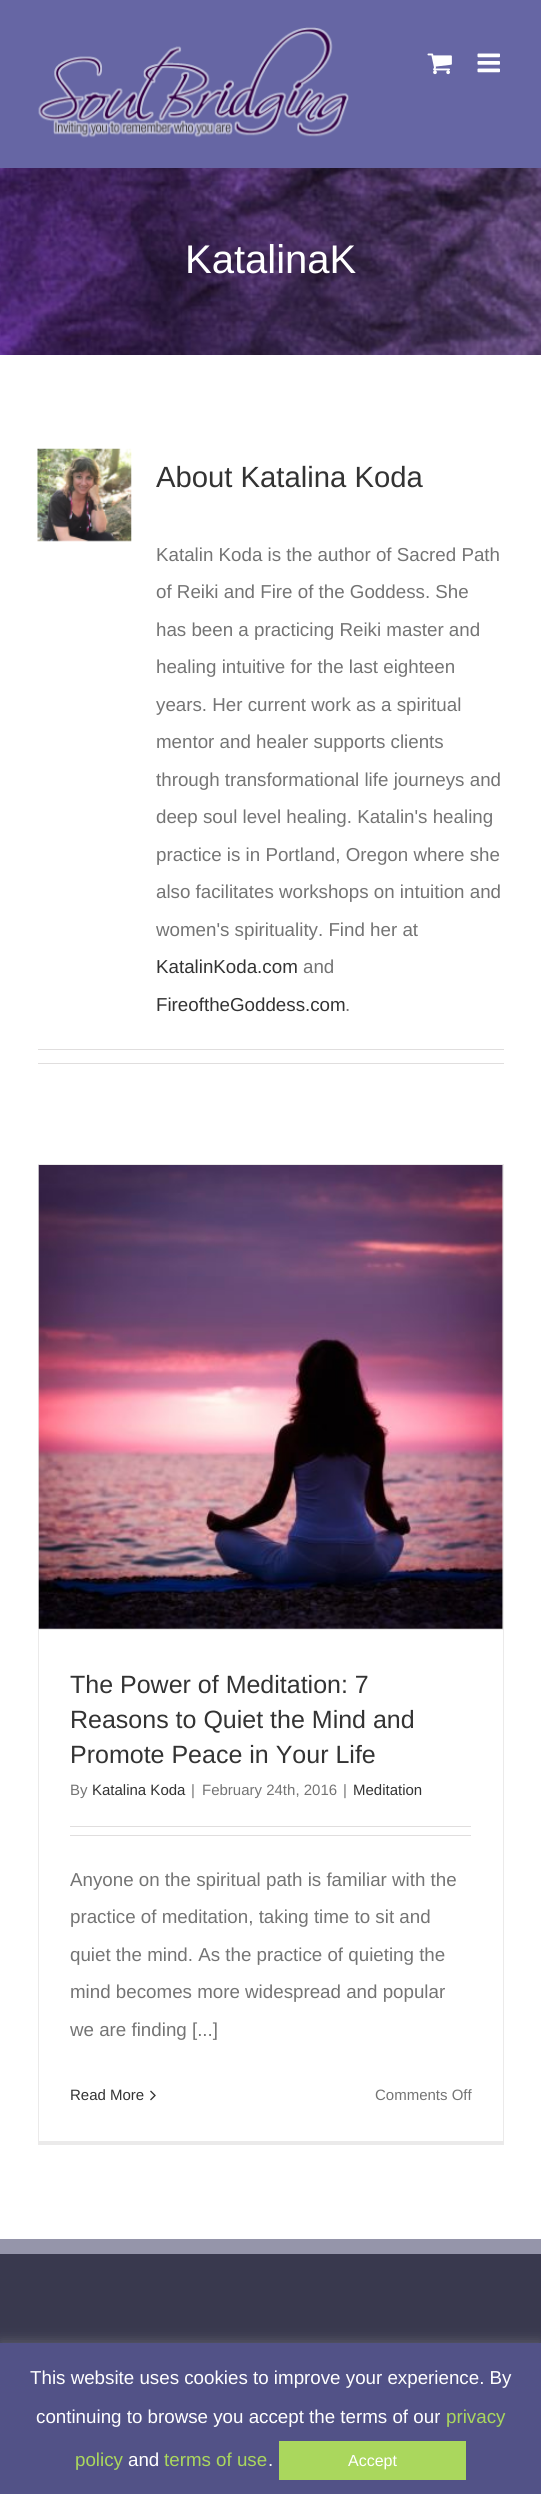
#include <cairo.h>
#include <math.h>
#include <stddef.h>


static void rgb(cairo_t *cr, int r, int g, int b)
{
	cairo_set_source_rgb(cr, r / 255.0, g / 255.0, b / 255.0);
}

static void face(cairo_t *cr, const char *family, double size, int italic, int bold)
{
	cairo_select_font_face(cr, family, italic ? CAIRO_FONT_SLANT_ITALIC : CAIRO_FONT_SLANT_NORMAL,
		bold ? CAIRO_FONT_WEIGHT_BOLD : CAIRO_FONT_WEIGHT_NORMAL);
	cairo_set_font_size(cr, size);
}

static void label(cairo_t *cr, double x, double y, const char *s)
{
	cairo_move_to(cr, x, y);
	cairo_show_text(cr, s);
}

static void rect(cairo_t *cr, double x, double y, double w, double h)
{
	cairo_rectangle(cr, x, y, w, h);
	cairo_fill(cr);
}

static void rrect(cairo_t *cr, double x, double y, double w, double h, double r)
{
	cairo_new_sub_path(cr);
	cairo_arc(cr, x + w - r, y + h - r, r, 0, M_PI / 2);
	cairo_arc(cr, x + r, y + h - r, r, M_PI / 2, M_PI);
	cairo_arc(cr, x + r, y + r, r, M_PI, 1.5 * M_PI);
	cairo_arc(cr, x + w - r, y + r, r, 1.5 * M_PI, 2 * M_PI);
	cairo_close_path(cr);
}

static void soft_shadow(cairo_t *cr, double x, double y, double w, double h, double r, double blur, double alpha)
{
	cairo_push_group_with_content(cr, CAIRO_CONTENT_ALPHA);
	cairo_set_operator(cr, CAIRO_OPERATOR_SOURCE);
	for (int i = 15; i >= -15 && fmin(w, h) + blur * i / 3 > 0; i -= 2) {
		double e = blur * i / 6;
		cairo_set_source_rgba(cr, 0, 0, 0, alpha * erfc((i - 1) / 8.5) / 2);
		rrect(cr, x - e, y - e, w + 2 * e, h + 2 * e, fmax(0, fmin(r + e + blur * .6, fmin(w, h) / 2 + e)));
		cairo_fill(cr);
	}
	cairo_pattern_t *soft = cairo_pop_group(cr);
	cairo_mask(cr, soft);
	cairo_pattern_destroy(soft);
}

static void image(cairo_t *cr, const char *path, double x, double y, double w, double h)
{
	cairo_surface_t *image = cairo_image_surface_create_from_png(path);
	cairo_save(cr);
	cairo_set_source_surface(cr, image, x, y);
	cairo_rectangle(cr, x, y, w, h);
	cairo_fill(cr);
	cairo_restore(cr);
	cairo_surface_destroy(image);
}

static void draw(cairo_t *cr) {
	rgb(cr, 255, 255, 255);
	cairo_paint(cr);
	rgb(cr, 102, 102, 164);
	rect(cr, 0, 0, 541, 168);
	image(cr, "image0.png", 38, 27, 311, 111);
	image(cr, "image1.png", 427, 53, 25, 22);
	image(cr, "image2.png", 477, 53, 23, 20);
	image(cr, "image3.png", 0, 168, 541, 187);
	face(cr, "Liberation Sans", 40, 0, 0);
	rgb(cr, 255, 255, 255);
	label(cr, 185, 273, "KatalinaK");
	image(cr, "image4.png", 37, 448, 95, 94);
	face(cr, "Liberation Sans", 29.25, 0, 0);
	rgb(cr, 51, 51, 51);
	label(cr, 156, 487, "About Katalina Koda");
	face(cr, "Liberation Sans", 18.75, 0, 0);
	rgb(cr, 116, 116, 116);
	label(cr, 156, 561, "Katalin Koda is the author of Sacred Path");
	label(cr, 156, 598, "of Reiki and Fire of the Goddess. She");
	label(cr, 156, 636, "has been a practicing Reiki master and");
	label(cr, 156, 673, "healing intuitive for the last eighteen");
	label(cr, 156, 711, "years. Her current work as a spiritual");
	label(cr, 156, 748, "mentor and healer supports clients");
	label(cr, 156, 786, "through transformational life journeys and");
	label(cr, 156, 823, "deep soul level healing. Katalin's healing");
	label(cr, 156, 861, "practice is in Portland, Oregon where she");
	label(cr, 156, 898, "also facilitates workshops on intuition and");
	label(cr, 156, 936, "women's spirituality. Find her at");
	rgb(cr, 51, 51, 51);
	label(cr, 156, 973, "KatalinKoda.com");
	rgb(cr, 116, 116, 116);
	label(cr, 303, 973, "and");
	rgb(cr, 51, 51, 51);
	label(cr, 156, 1011, "FireoftheGoddess.com");
	rgb(cr, 116, 116, 116);
	label(cr, 345, 1011, ".");
	rgb(cr, 224, 222, 222);
	rect(cr, 38, 1049, 466, 1);
	rect(cr, 38, 1063, 466, 1);
	rgb(cr, 235, 234, 234);
	rect(cr, 38, 1164, 466, 1);
	rect(cr, 503, 1164, 1, 981);
	rect(cr, 38, 2141, 466, 4);
	rect(cr, 38, 1164, 1, 981);
	rect(cr, 39, 1629, 464, 1);
	image(cr, "image5.png", 38, 1165, 465, 464);
	face(cr, "Liberation Sans", 25, 0, 0);
	rgb(cr, 51, 51, 51);
	label(cr, 70, 1693, "The Power of Meditation: 7");
	label(cr, 70, 1728, "Reasons to Quiet the Mind and");
	label(cr, 70, 1763, "Promote Peace in Your Life");
	face(cr, "Liberation Sans", 15, 0, 0);
	rgb(cr, 116, 116, 116);
	label(cr, 70, 1795, "By");
	rgb(cr, 51, 51, 51);
	label(cr, 92, 1795, "Katalina Koda");
	rgb(cr, 116, 116, 116);
	label(cr, 191, 1795, "|");
	label(cr, 202, 1795, "February 24th, 2016");
	label(cr, 343, 1795, "|");
	rgb(cr, 51, 51, 51);
	label(cr, 353, 1795, "Meditation");
	rgb(cr, 224, 222, 222);
	rect(cr, 70, 1826, 401, 1);
	rect(cr, 70, 1835, 401, 1);
	face(cr, "Liberation Sans", 18.75, 0, 0);
	rgb(cr, 116, 116, 116);
	label(cr, 70, 1886, "Anyone on the spiritual path is familiar with the");
	label(cr, 70, 1923, "practice of meditation, taking time to sit and");
	label(cr, 70, 1961, "quiet the mind. As the practice of quieting the");
	label(cr, 70, 1998, "mind becomes more widespread and popular");
	label(cr, 70, 2036, "we are finding [...]");
	face(cr, "Liberation Sans", 15, 0, 0);
	rgb(cr, 51, 51, 51);
	label(cr, 70, 2100, "Read More");
	image(cr, "image6.png", 150, 2090, 6, 11);
	rgb(cr, 116, 116, 116);
	label(cr, 375, 2100, "Comments Off");
	rgb(cr, 57, 57, 78);
	rect(cr, 0, 2254, 541, 89);
	rgb(cr, 149, 149, 170);
	rect(cr, 0, 2239, 541, 15);
	rgb(cr, 172, 171, 171);
	soft_shadow(cr, 0, 2341, 541, 153, 0, 6, 0.3);
	rgb(cr, 82, 82, 135);
	rect(cr, 0, 2343, 541, 151);
	face(cr, "Liberation Sans", 18.75, 0, 0);
	rgb(cr, 255, 255, 255);
	label(cr, 30, 2384, "This website uses cookies to improve your experience. By");
	label(cr, 36, 2423, "continuing to browse you accept the terms of our");
	rgb(cr, 170, 215, 93);
	label(cr, 446, 2423, "privacy");
	label(cr, 75, 2466, "policy");
	rgb(cr, 255, 255, 255);
	label(cr, 128, 2466, "and");
	rgb(cr, 170, 215, 93);
	label(cr, 164, 2466, "terms of use");
	rgb(cr, 255, 255, 255);
	label(cr, 268, 2466, ".");
	rgb(cr, 170, 215, 93);
	rect(cr, 279, 2441, 187, 39);
	face(cr, "Liberation Sans", 16, 0, 0);
	rgb(cr, 255, 255, 255);
	label(cr, 348, 2466, "Accept");
}

int main(void) {
	cairo_surface_t *surface = cairo_image_surface_create(CAIRO_FORMAT_RGB24, 541, 2494);
	cairo_t *cr = cairo_create(surface);
	cairo_font_options_t *options = cairo_font_options_create();
	cairo_font_options_set_hint_metrics(options, CAIRO_HINT_METRICS_OFF);
	cairo_font_options_set_hint_style(options, CAIRO_HINT_STYLE_NONE);
	cairo_set_font_options(cr, options);
	cairo_set_miter_limit(cr, 4);
	draw(cr);
	cairo_surface_write_to_png(surface, "render.png");
	cairo_font_options_destroy(options);
	cairo_destroy(cr);
	cairo_surface_destroy(surface);
	return 0;
}
